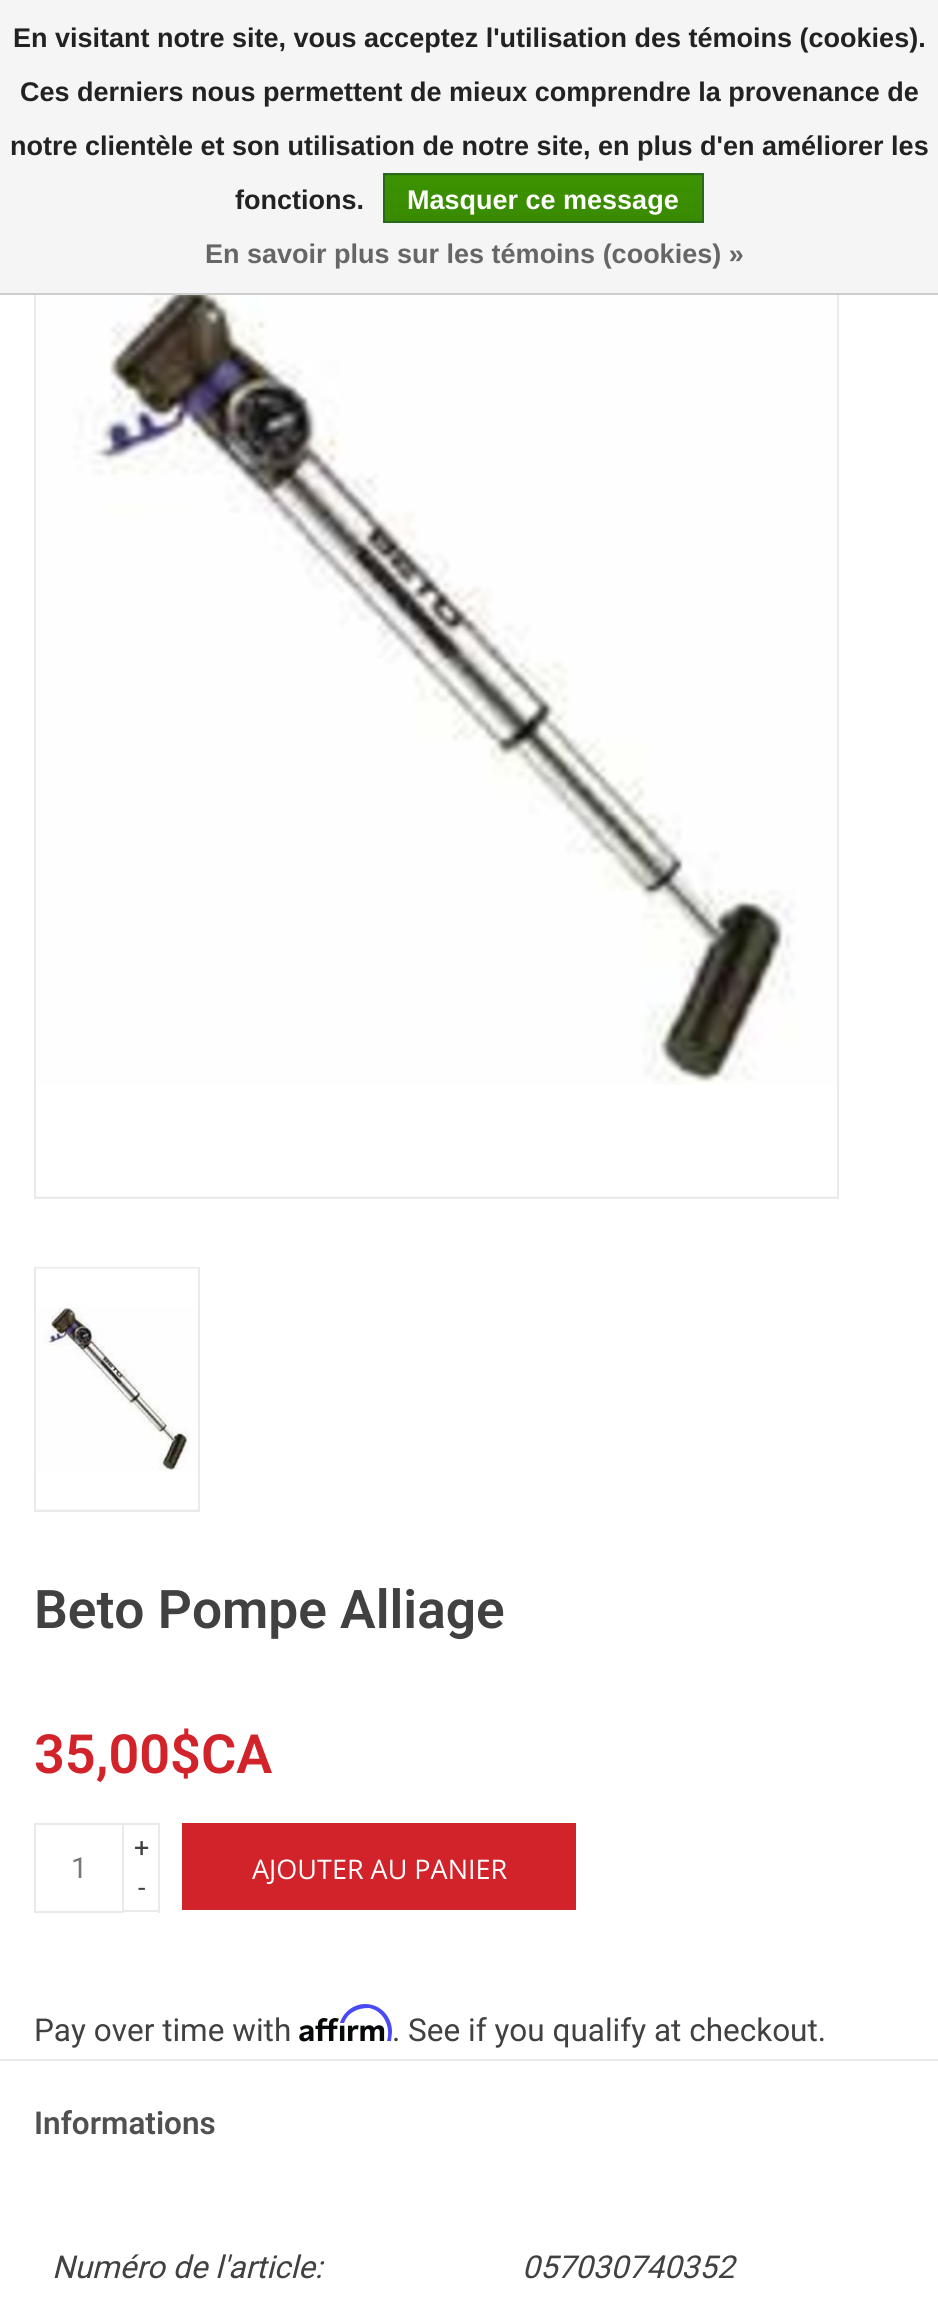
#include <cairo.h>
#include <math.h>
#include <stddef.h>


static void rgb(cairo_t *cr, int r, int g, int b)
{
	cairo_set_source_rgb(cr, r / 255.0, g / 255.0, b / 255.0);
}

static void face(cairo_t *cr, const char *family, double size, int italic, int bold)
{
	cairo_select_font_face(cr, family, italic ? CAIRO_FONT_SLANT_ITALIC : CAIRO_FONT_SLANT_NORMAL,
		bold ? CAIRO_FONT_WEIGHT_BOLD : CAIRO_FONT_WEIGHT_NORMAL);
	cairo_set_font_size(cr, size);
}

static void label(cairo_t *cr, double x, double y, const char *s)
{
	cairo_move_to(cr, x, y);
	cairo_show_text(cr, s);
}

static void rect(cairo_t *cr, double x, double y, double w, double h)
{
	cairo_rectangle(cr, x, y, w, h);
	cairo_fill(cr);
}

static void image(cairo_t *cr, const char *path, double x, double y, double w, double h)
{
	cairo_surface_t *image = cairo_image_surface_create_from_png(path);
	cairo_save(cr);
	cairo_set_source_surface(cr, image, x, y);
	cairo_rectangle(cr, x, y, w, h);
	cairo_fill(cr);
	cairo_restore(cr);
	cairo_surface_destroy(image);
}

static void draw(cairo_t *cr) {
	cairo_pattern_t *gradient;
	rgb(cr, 255, 255, 255);
	cairo_paint(cr);
	cairo_rectangle(cr, 35, 172, 803, 1026);
	rgb(cr, 234, 234, 234);
	cairo_stroke(cr);
	rgb(cr, 245, 245, 245);
	rect(cr, 0, 0, 938, 293);
	rgb(cr, 204, 204, 204);
	rect(cr, 0, 293, 938, 2);
	face(cr, "Liberation Sans", 27, 0, 1);
	rgb(cr, 34, 34, 34);
	label(cr, 13, 47, "En visitant notre site, vous acceptez l'utilisation des témoins (cookies).");
	label(cr, 20, 101, "Ces derniers nous permettent de mieux comprendre la provenance de");
	label(cr, 10, 155, "notre clientèle et son utilisation de notre site, en plus d'en améliorer les");
	label(cr, 235, 209, "fonctions.");
	gradient = cairo_pattern_create_linear(543, 130, 543, 176);
	cairo_pattern_add_color_stop_rgba(gradient, 0, 0.235, 0.576, 0, 1);
	cairo_pattern_add_color_stop_rgba(gradient, 1, 0.224, 0.541, 0, 1);
	cairo_set_source(cr, gradient);
	cairo_pattern_destroy(gradient);
	rect(cr, 383, 175, 321, 1);
	gradient = cairo_pattern_create_linear(543, 175, 543, 221);
	cairo_pattern_add_color_stop_rgba(gradient, 0, 0.235, 0.576, 0, 1);
	cairo_pattern_add_color_stop_rgba(gradient, 1, 0.224, 0.541, 0, 1);
	cairo_set_source(cr, gradient);
	cairo_pattern_destroy(gradient);
	rect(cr, 385, 176, 317, 45);
	cairo_rectangle(cr, 384, 174, 319, 48);
	rgb(cr, 41, 105, 29);
	cairo_stroke(cr);
	rgb(cr, 255, 255, 255);
	label(cr, 407, 209, "Masquer ce message");
	rgb(cr, 102, 102, 102);
	label(cr, 205, 263, "En savoir plus sur les témoins (cookies) »");
	rgb(cr, 247, 247, 247);
	rect(cr, 36, 1196, 801, 1);
	image(cr, "image0.png", 36, 295, 801, 901);
	cairo_rectangle(cr, 35, 1268, 164, 243);
	rgb(cr, 234, 234, 234);
	cairo_stroke(cr);
	rgb(cr, 247, 247, 247);
	rect(cr, 36, 1509, 162, 1);
	image(cr, "image1.png", 36, 1268, 162, 241);
	face(cr, "Roboto SemiBold", 53.25, 0, 0);
	rgb(cr, 65, 65, 65);
	label(cr, 34, 1628, "Beto Pompe Alliage");
	face(cr, "Roboto SemiBold", 54, 0, 0);
	rgb(cr, 210, 35, 42);
	label(cr, 34, 1773, "35,00$CA");
	cairo_rectangle(cr, 35, 1824, 88, 88);
	rgb(cr, 234, 234, 234);
	cairo_stroke(cr);
	face(cr, "Roboto", 29, 0, 0);
	rgb(cr, 119, 119, 119);
	label(cr, 71, 1878, "1");
	rgb(cr, 234, 234, 234);
	rect(cr, 124, 1823, 36, 2);
	rect(cr, 158, 1823, 2, 90);
	rect(cr, 124, 1910, 36, 2);
	face(cr, "Roboto", 27, 0, 0);
	rgb(cr, 65, 65, 65);
	label(cr, 134, 1857, "+");
	label(cr, 138, 1897, "-");
	rgb(cr, 210, 35, 42);
	rect(cr, 182, 1823, 394, 87);
	face(cr, "Open Sans", 27, 0, 0);
	rgb(cr, 255, 255, 255);
	label(cr, 252, 1879, "AJOUTER AU PANIER");
	face(cr, "Roboto", 31.5, 0, 0);
	rgb(cr, 65, 65, 65);
	label(cr, 34, 2041, "Pay over time with");
	image(cr, "image2.png", 299, 2018, 86, 24);
	rgb(cr, 74, 74, 244);
	cairo_new_path(cr);
	cairo_move_to(cr, 365, 2004);
	cairo_curve_to(cr, 354, 2004, 343, 2012, 340, 2023);
	cairo_line_to(cr, 344, 2023);
	cairo_curve_to(cr, 346, 2018, 349, 2014, 353, 2012);
	cairo_curve_to(cr, 358, 2009, 363, 2008, 369, 2008);
	cairo_curve_to(cr, 384, 2011, 391, 2027, 387, 2041);
	cairo_line_to(cr, 391, 2041);
	cairo_line_to(cr, 392, 2032);
	cairo_curve_to(cr, 392, 2017, 381, 2004, 365, 2004);
	cairo_close_path(cr);
	cairo_fill(cr);
	rgb(cr, 65, 65, 65);
	label(cr, 392, 2041, ". See if you qualify at checkout.");
	rgb(cr, 234, 234, 234);
	rect(cr, 0, 2059, 938, 2);
	face(cr, "Roboto SemiBold", 31.5, 0, 0);
	rgb(cr, 80, 80, 80);
	label(cr, 34, 2134, "Informations");
	face(cr, "Roboto", 31.5, 1, 0);
	rgb(cr, 65, 65, 65);
	label(cr, 52, 2278, "Numéro de l'article:");
	label(cr, 522, 2278, "057030740352");
}

int main(void) {
	cairo_surface_t *surface = cairo_image_surface_create(CAIRO_FORMAT_RGB24, 938, 2306);
	cairo_t *cr = cairo_create(surface);
	cairo_font_options_t *options = cairo_font_options_create();
	cairo_font_options_set_hint_metrics(options, CAIRO_HINT_METRICS_OFF);
	cairo_font_options_set_hint_style(options, CAIRO_HINT_STYLE_NONE);
	cairo_set_font_options(cr, options);
	cairo_set_miter_limit(cr, 4);
	draw(cr);
	cairo_surface_write_to_png(surface, "render.png");
	cairo_font_options_destroy(options);
	cairo_destroy(cr);
	cairo_surface_destroy(surface);
	return 0;
}
